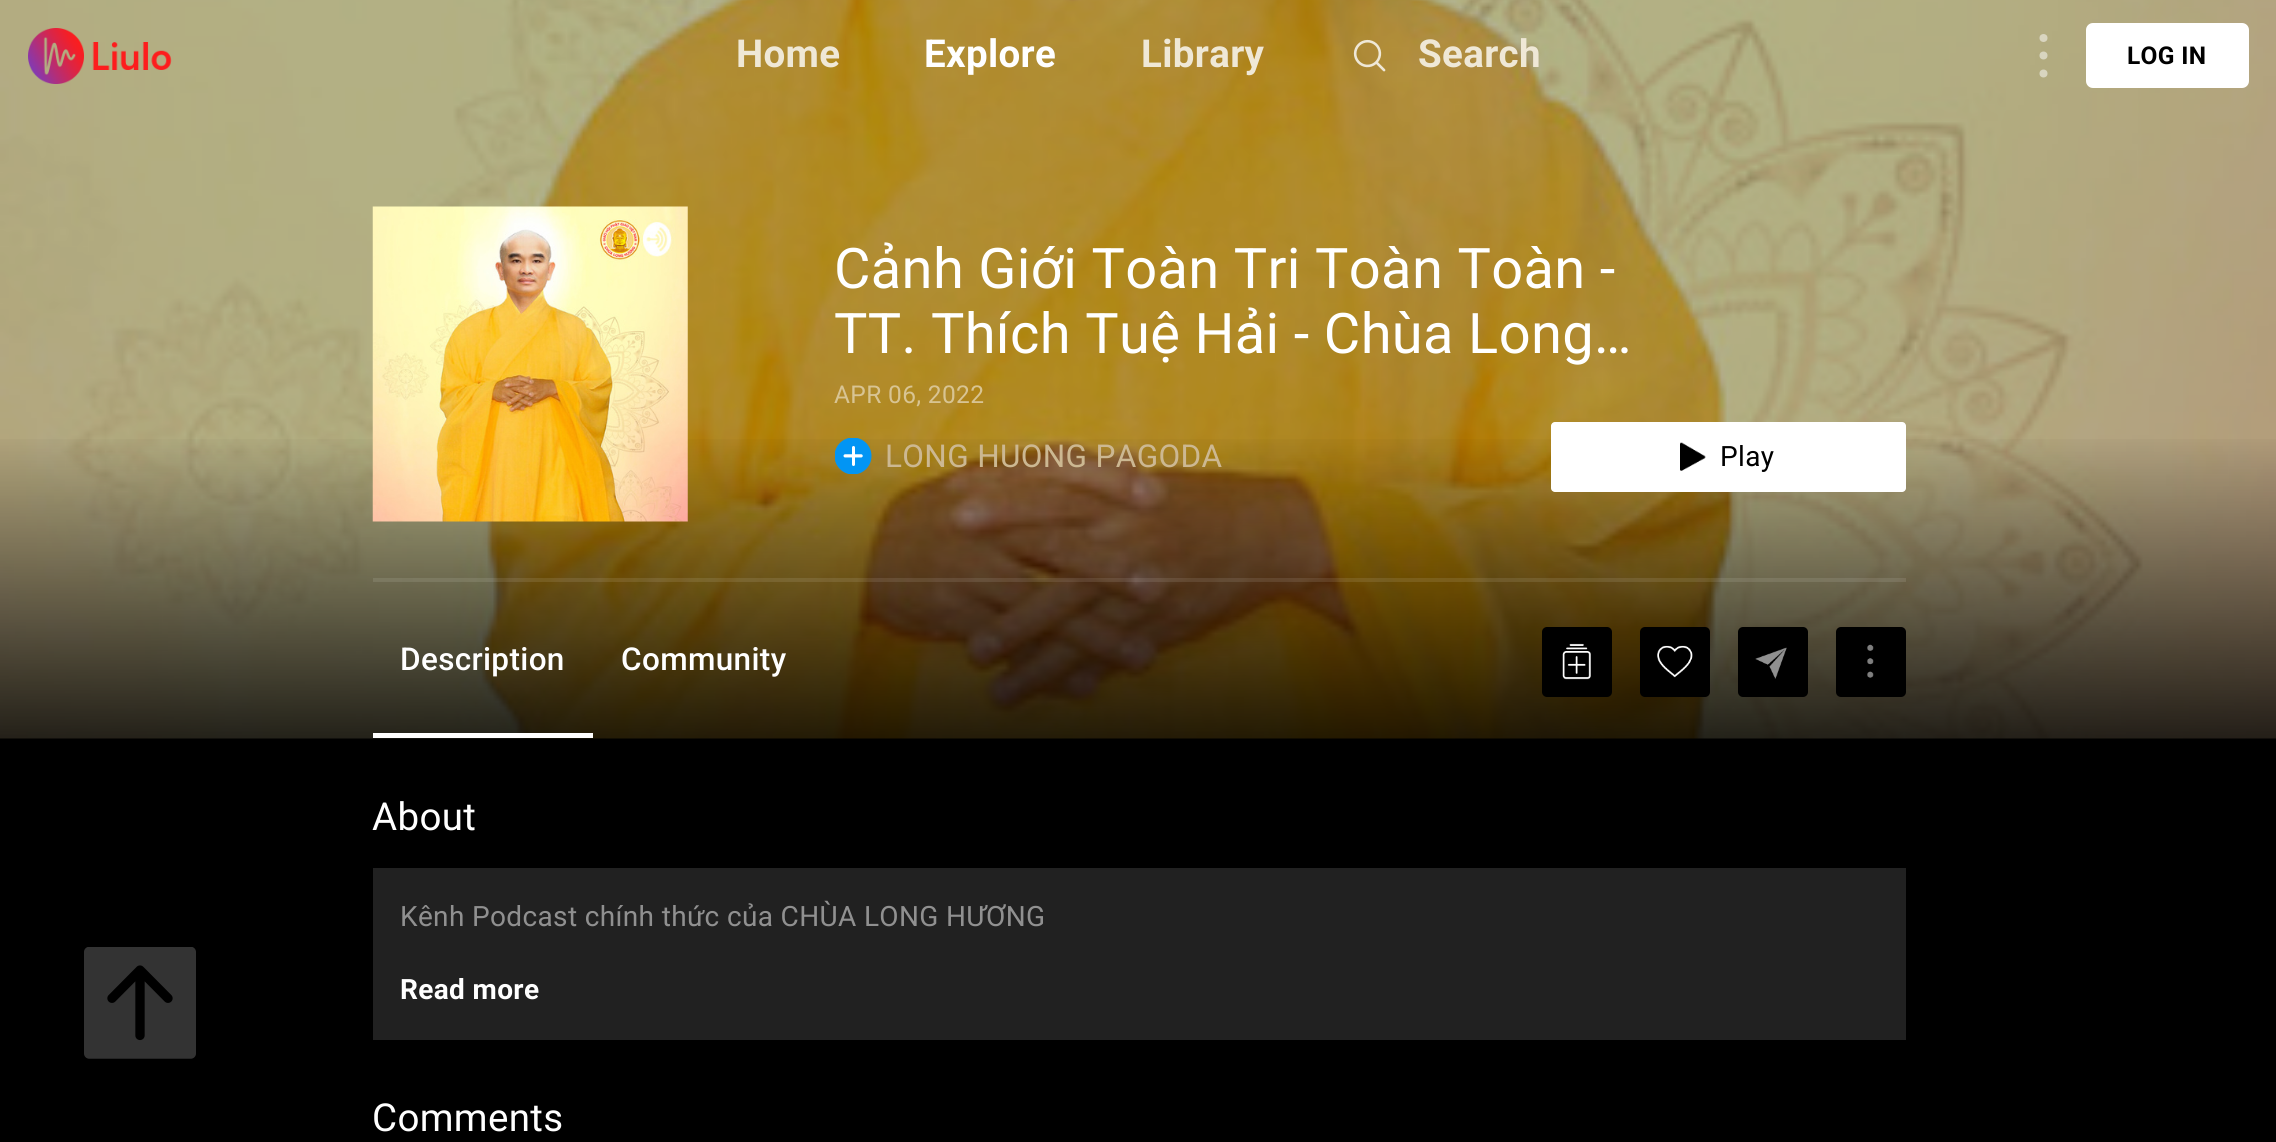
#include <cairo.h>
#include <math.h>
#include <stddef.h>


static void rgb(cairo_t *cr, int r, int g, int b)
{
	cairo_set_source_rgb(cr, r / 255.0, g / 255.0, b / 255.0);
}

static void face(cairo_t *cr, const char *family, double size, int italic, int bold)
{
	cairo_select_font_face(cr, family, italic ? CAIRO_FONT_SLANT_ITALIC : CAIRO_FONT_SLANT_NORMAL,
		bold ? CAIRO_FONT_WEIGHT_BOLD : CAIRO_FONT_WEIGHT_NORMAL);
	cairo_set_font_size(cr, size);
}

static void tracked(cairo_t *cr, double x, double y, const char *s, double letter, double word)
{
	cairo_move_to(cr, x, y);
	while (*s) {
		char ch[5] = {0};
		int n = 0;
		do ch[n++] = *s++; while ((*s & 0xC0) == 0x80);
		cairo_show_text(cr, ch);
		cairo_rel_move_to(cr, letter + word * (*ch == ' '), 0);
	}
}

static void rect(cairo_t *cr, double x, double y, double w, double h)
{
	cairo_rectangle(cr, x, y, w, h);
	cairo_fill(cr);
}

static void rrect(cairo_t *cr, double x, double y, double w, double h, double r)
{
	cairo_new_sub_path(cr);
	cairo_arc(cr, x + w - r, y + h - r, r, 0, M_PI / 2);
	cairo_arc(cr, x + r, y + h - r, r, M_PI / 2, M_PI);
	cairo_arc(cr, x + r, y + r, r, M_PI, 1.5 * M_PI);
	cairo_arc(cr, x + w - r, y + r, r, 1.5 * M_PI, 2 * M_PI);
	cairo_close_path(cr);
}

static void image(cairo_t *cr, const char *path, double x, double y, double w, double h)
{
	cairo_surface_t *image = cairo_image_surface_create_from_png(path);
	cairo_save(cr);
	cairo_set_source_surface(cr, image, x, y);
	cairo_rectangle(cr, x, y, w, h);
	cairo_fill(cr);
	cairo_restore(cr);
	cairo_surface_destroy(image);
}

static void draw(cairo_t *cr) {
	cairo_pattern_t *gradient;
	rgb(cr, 0, 0, 0);
	cairo_paint(cr);
	image(cr, "image3.png", 0, 0, 2276, 739);
	image(cr, "image0.png", 28, 28, 144, 56);
	face(cr, "Roboto", 38.5, 0, 1);
	rgb(cr, 239, 232, 214);
	tracked(cr, 736, 67, "Home", 0.35, 0);
	rgb(cr, 255, 255, 255);
	tracked(cr, 924, 67, "Explore", 0.35, 0);
	rgb(cr, 239, 232, 214);
	tracked(cr, 1141, 67, "Library", 0.35, 0);
	image(cr, "image1.png", 1353, 39, 33, 33);
	tracked(cr, 1418, 67, "Search", 0.35, 0);
	rgb(cr, 217, 213, 192);
	cairo_new_path(cr);
	cairo_arc(cr, 2043.5, 38, 4, 0, 2 * M_PI);
	cairo_fill(cr);
	rgb(cr, 216, 213, 191);
	cairo_arc(cr, 2043.5, 55.5, 4, 0, 2 * M_PI);
	cairo_fill(cr);
	cairo_arc(cr, 2043.5, 73.5, 4, 0, 2 * M_PI);
	cairo_fill(cr);
	rgb(cr, 255, 255, 255);
	rrect(cr, 2086, 23, 163, 65, 7);
	cairo_fill(cr);
	face(cr, "Roboto", 24.5, 0, 1);
	rgb(cr, 0, 0, 0);
	tracked(cr, 2127, 64, "LOG IN", 0.35, 0);
	image(cr, "image2.png", 84, 947, 112, 112);
	gradient = cairo_pattern_create_linear(1138, -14, 1138, 739);
	cairo_pattern_add_color_stop_rgba(gradient, 0.27, 0, 0, 0, 0);
	cairo_pattern_add_color_stop_rgba(gradient, 0.59, 0, 0, 0, 0);
	cairo_pattern_add_color_stop_rgba(gradient, 1, 0, 0, 0, 0.8);
	cairo_set_source(cr, gradient);
	cairo_pattern_destroy(gradient);
	rect(cr, 0, 439, 2276, 300);
	image(cr, "image4.png", 372, 206, 316, 316);
	face(cr, "Roboto", 56, 0, 0);
	rgb(cr, 255, 255, 255);
	tracked(cr, 834, 288, "Cảnh Giới Toàn Tri Toàn Toàn -", 0.35, 0);
	tracked(cr, 834, 353, "TT. Thích Tuệ Hải - Chùa Long…", 0.35, 0);
	face(cr, "Roboto", 24.5, 0, 0);
	rgb(cr, 216, 196, 147);
	tracked(cr, 834, 403, "APR 06, 2022", 0.35, 0);
	image(cr, "image5.png", 835, 438, 37, 36);
	face(cr, "Roboto", 31.5, 0, 0);
	rgb(cr, 204, 184, 146);
	tracked(cr, 885, 467, "LONG HUONG PAGODA", 0.35, 0);
	rgb(cr, 255, 255, 255);
	rrect(cr, 1551, 422, 355, 70, 4);
	cairo_fill(cr);
	image(cr, "image6.png", 1680, 442, 26, 29);
	face(cr, "Roboto", 28, 0, 0);
	rgb(cr, 0, 0, 0);
	tracked(cr, 1720, 466, "Play", 0.35, 0);
	cairo_set_source_rgba(cr, 1, 1, 1, 0.1);
	rect(cr, 373, 578, 1533, 4);
	rgb(cr, 255, 255, 255);
	rect(cr, 373, 733, 220, 5);
	face(cr, "Roboto Medium", 31.5, 0, 0);
	tracked(cr, 400, 670, "Description", 0.35, 0);
	tracked(cr, 621, 670, "Community", 0.35, 0);
	rgb(cr, 0, 0, 0);
	rrect(cr, 1542, 627, 70, 70, 5);
	cairo_fill(cr);
	image(cr, "image7.png", 1562, 643, 29, 37);
	rrect(cr, 1640, 627, 70, 70, 5);
	cairo_fill(cr);
	image(cr, "image8.png", 1657, 645, 36, 33);
	rrect(cr, 1738, 627, 70, 70, 5);
	cairo_fill(cr);
	image(cr, "image9.png", 1755, 647, 32, 32);
	rrect(cr, 1836, 627, 70, 70, 5);
	cairo_fill(cr);
	image(cr, "image10.png", 1867, 644, 7, 34);
	face(cr, "Roboto", 38.5, 0, 0);
	rgb(cr, 255, 255, 255);
	tracked(cr, 372, 830, "About", 0.35, 0);
	rgb(cr, 33, 33, 33);
	rect(cr, 373, 868, 1533, 172);
	face(cr, "Roboto", 28, 0, 0);
	rgb(cr, 144, 144, 144);
	tracked(cr, 400, 926, "Kênh Podcast chính thức của CHÙA LONG HƯƠNG", 0.35, 0);
	face(cr, "Roboto", 28, 0, 1);
	rgb(cr, 255, 255, 255);
	tracked(cr, 400, 999, "Read more", 0.35, 0);
	face(cr, "Roboto", 38.5, 0, 0);
	tracked(cr, 372, 1131, "Comments", 0.35, 0);
}

int main(void) {
	cairo_surface_t *surface = cairo_image_surface_create(CAIRO_FORMAT_RGB24, 2276, 1142);
	cairo_t *cr = cairo_create(surface);
	cairo_font_options_t *options = cairo_font_options_create();
	cairo_font_options_set_hint_metrics(options, CAIRO_HINT_METRICS_OFF);
	cairo_font_options_set_hint_style(options, CAIRO_HINT_STYLE_NONE);
	cairo_set_font_options(cr, options);
	cairo_set_miter_limit(cr, 4);
	draw(cr);
	cairo_surface_write_to_png(surface, "render.png");
	cairo_font_options_destroy(options);
	cairo_destroy(cr);
	cairo_surface_destroy(surface);
	return 0;
}
